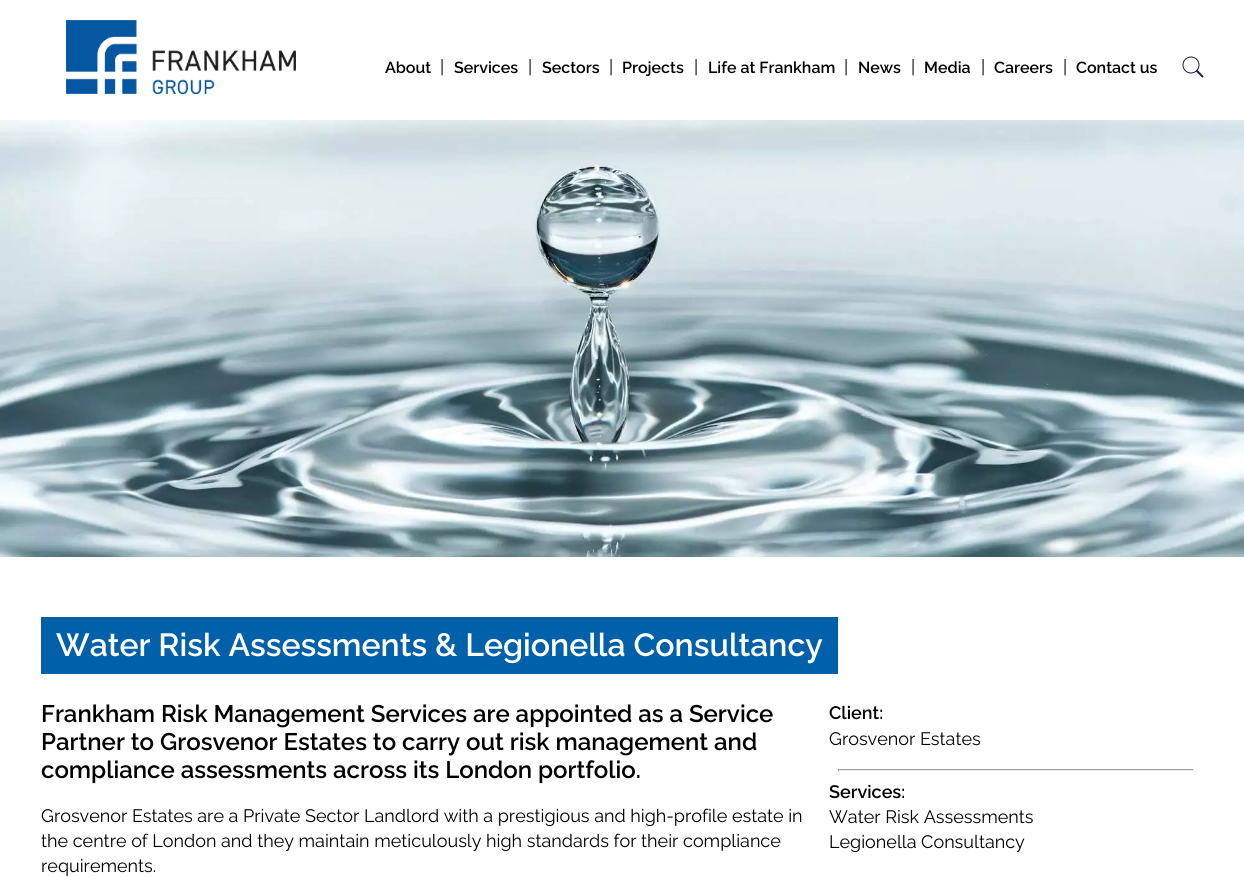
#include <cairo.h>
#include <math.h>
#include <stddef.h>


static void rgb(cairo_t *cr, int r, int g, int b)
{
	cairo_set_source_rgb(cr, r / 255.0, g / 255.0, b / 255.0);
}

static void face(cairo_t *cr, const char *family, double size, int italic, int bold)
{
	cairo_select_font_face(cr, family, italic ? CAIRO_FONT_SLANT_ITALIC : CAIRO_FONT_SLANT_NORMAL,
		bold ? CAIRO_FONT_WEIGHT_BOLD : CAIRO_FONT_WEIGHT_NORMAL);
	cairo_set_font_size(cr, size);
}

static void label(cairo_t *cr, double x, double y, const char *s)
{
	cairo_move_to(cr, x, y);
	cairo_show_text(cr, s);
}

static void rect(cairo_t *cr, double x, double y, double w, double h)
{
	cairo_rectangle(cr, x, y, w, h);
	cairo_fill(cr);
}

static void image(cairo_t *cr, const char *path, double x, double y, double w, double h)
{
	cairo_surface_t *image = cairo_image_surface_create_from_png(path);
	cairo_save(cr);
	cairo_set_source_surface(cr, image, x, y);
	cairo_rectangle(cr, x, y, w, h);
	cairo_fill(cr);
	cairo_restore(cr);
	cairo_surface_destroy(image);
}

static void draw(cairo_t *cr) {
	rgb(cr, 255, 255, 255);
	cairo_paint(cr);
	image(cr, "image0.png", 66, 20, 230, 74);
	face(cr, "Raleway SemiBold", 16, 0, 0);
	rgb(cr, 0, 0, 0);
	label(cr, 385, 73, "About");
	face(cr, "Raleway", 18, 0, 0);
	label(cr, 440, 73, "|");
	face(cr, "Raleway SemiBold", 16, 0, 0);
	label(cr, 454, 73, "Services");
	face(cr, "Raleway", 18, 0, 0);
	label(cr, 528, 73, "|");
	face(cr, "Raleway SemiBold", 16, 0, 0);
	label(cr, 542, 73, "Sectors");
	face(cr, "Raleway", 18, 0, 0);
	label(cr, 609, 73, "|");
	face(cr, "Raleway SemiBold", 16, 0, 0);
	label(cr, 622, 73, "Projects");
	face(cr, "Raleway", 18, 0, 0);
	label(cr, 694, 73, "|");
	face(cr, "Raleway SemiBold", 16, 0, 0);
	label(cr, 708, 73, "Life at Frankham");
	face(cr, "Raleway", 18, 0, 0);
	label(cr, 844, 73, "|");
	face(cr, "Raleway SemiBold", 16, 0, 0);
	label(cr, 858, 73, "News");
	face(cr, "Raleway", 18, 0, 0);
	label(cr, 911, 73, "|");
	face(cr, "Raleway SemiBold", 16, 0, 0);
	label(cr, 924, 73, "Media");
	face(cr, "Raleway", 18, 0, 0);
	label(cr, 981, 73, "|");
	face(cr, "Raleway SemiBold", 16, 0, 0);
	label(cr, 994, 73, "Careers");
	face(cr, "Raleway", 18, 0, 0);
	label(cr, 1063, 73, "|");
	face(cr, "Raleway SemiBold", 16, 0, 0);
	label(cr, 1076, 73, "Contact us");
	image(cr, "image1.png", 1182, 56, 22, 22);
	image(cr, "image2.png", 0, 120, 1244, 437);
	rgb(cr, 0, 97, 170);
	rect(cr, 41, 617, 797, 57);
	face(cr, "Raleway SemiBold", 32, 0, 0);
	rgb(cr, 255, 255, 255);
	label(cr, 56, 656, "Water Risk Assessments & Legionella Consultancy");
	face(cr, "Raleway SemiBold", 24, 0, 0);
	rgb(cr, 0, 0, 0);
	label(cr, 41, 722, "Frankham Risk Management Services are appointed as a Service");
	label(cr, 41, 750, "Partner to Grosvenor Estates to carry out risk management and");
	label(cr, 41, 778, "compliance assessments across its London portfolio.");
	face(cr, "Raleway", 18, 0, 0);
	label(cr, 41, 822, "Grosvenor Estates are a Private Sector Landlord with a prestigious and high-profile estate in");
	label(cr, 41, 847, "the centre of London and they maintain meticulously high standards for their compliance");
	label(cr, 41, 872, "requirements.");
	face(cr, "Raleway SemiBold", 18, 0, 0);
	label(cr, 829, 719, "Client:");
	face(cr, "Raleway", 18, 0, 0);
	label(cr, 829, 745, "Grosvenor Estates");
	rgb(cr, 159, 159, 159);
	rect(cr, 838, 769, 356, 1);
	rgb(cr, 238, 238, 238);
	rect(cr, 1193, 769, 1, 2);
	rect(cr, 838, 770, 356, 1);
	rgb(cr, 159, 159, 159);
	rect(cr, 838, 769, 1, 2);
	face(cr, "Raleway SemiBold", 18, 0, 0);
	rgb(cr, 0, 0, 0);
	label(cr, 829, 798, "Services:");
	face(cr, "Raleway", 18, 0, 0);
	label(cr, 829, 823, "Water Risk Assessments");
	label(cr, 829, 848, "Legionella Consultancy");
}

int main(void) {
	cairo_surface_t *surface = cairo_image_surface_create(CAIRO_FORMAT_RGB24, 1244, 877);
	cairo_t *cr = cairo_create(surface);
	cairo_font_options_t *options = cairo_font_options_create();
	cairo_font_options_set_hint_metrics(options, CAIRO_HINT_METRICS_OFF);
	cairo_font_options_set_hint_style(options, CAIRO_HINT_STYLE_NONE);
	cairo_set_font_options(cr, options);
	cairo_set_miter_limit(cr, 4);
	draw(cr);
	cairo_surface_write_to_png(surface, "render.png");
	cairo_font_options_destroy(options);
	cairo_destroy(cr);
	cairo_surface_destroy(surface);
	return 0;
}
